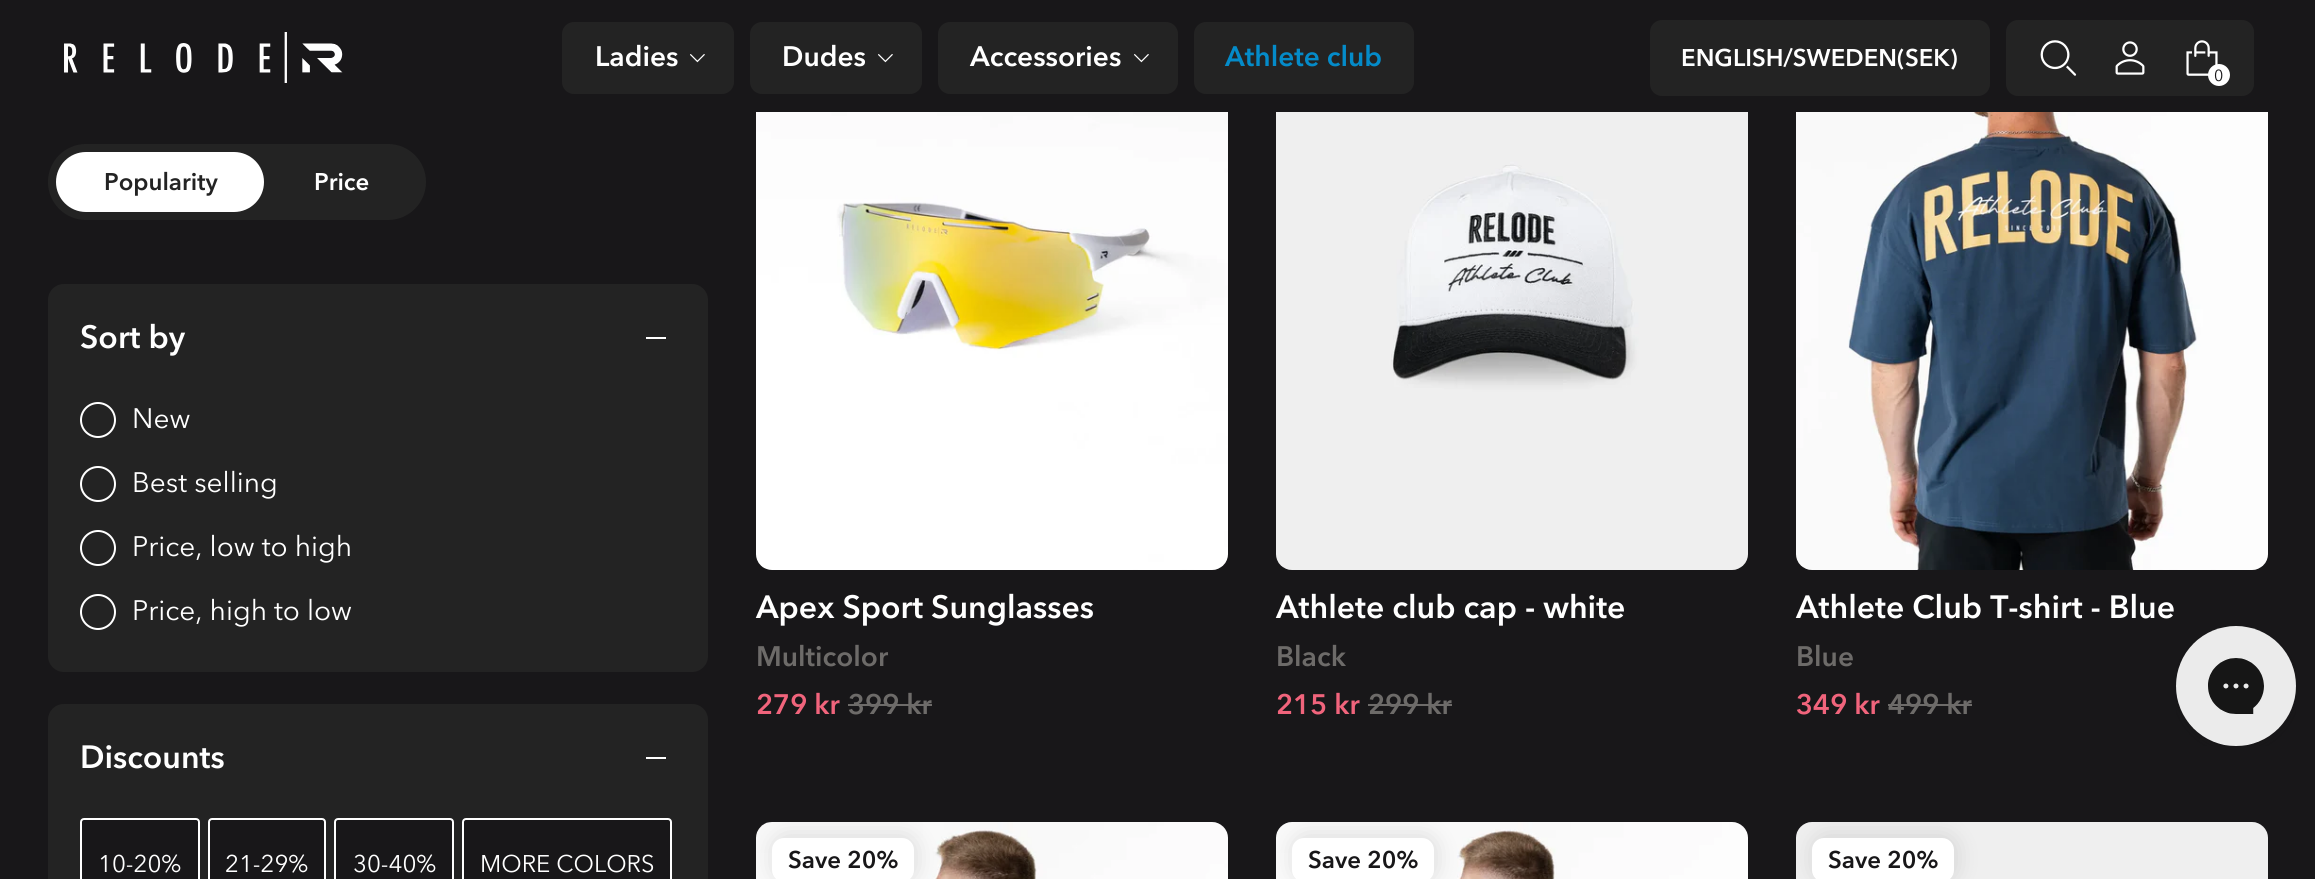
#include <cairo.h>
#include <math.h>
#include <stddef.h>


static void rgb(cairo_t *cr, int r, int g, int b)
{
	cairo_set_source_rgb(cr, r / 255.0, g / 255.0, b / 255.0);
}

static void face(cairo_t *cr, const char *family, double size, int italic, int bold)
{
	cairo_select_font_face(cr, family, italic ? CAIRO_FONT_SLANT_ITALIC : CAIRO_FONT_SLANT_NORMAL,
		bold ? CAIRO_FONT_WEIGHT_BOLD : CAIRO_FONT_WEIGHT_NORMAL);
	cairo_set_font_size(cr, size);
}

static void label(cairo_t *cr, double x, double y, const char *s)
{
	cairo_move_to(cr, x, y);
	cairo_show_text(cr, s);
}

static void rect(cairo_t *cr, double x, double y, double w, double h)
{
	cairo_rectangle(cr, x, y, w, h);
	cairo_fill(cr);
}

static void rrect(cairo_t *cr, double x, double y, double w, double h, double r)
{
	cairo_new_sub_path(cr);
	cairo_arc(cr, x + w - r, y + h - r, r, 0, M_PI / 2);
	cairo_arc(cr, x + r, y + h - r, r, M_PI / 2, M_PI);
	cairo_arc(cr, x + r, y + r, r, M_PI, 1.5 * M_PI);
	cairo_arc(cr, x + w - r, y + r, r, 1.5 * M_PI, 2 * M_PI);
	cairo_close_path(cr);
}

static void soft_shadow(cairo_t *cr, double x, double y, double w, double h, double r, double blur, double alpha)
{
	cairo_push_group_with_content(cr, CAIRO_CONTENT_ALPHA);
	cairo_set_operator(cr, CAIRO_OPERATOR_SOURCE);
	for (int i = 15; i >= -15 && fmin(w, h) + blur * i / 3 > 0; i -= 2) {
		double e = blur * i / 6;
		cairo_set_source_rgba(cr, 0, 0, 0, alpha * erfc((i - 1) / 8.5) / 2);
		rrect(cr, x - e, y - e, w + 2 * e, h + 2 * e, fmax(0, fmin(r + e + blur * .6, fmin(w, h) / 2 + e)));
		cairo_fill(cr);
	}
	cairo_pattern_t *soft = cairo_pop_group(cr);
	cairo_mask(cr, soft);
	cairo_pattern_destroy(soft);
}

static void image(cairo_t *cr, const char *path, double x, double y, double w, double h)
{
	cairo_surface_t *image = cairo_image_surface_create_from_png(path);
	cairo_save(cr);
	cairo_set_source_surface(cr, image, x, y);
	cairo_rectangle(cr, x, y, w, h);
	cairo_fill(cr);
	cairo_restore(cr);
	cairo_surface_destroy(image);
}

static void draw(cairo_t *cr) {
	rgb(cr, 24, 23, 25);
	cairo_paint(cr);
	image(cr, "image0.png", 64, 32, 279, 51);
	rgb(cr, 35, 35, 35);
	rrect(cr, 562, 22, 172, 72, 12);
	cairo_fill(cr);
	face(cr, "Avenir Next SemiBold", 28, 0, 0);
	rgb(cr, 255, 255, 255);
	label(cr, 595, 66, "Ladies");
	image(cr, "image1.png", 690, 54, 15, 9);
	rgb(cr, 35, 35, 35);
	rrect(cr, 750, 22, 172, 72, 12);
	cairo_fill(cr);
	rgb(cr, 255, 255, 255);
	label(cr, 782, 66, "Dudes");
	image(cr, "image1.png", 878, 54, 15, 9);
	rgb(cr, 35, 35, 35);
	rrect(cr, 938, 22, 240, 72, 12);
	cairo_fill(cr);
	rgb(cr, 255, 255, 255);
	label(cr, 970, 66, "Accessories");
	image(cr, "image1.png", 1134, 54, 15, 9);
	rgb(cr, 35, 35, 35);
	rrect(cr, 1194, 22, 220, 72, 12);
	cairo_fill(cr);
	rgb(cr, 4, 139, 201);
	label(cr, 1225, 66, "Athlete club");
	rgb(cr, 35, 35, 35);
	rrect(cr, 1650, 20, 340, 76, 12);
	cairo_fill(cr);
	face(cr, "Avenir Next SemiBold", 24, 0, 0);
	rgb(cr, 255, 255, 255);
	label(cr, 1681, 66, "ENGLISH/SWEDEN(SEK)");
	rgb(cr, 35, 35, 35);
	rrect(cr, 2006, 20, 248, 76, 12);
	cairo_fill(cr);
	image(cr, "image2.png", 2040, 40, 37, 36);
	image(cr, "image3.png", 2115, 41, 30, 34);
	image(cr, "image4.png", 2186, 40, 32, 36);
	rgb(cr, 255, 255, 255);
	cairo_arc(cr, 2219, 75, 11, 0, 2 * M_PI);
	cairo_fill(cr);
	face(cr, "Avenir Next", 16, 0, 0);
	rgb(cr, 24, 23, 25);
	label(cr, 2214, 81, "0");
	rgb(cr, 35, 35, 35);
	rrect(cr, 48, 144, 378, 76, 38);
	cairo_fill(cr);
	rgb(cr, 255, 255, 255);
	rrect(cr, 56, 152, 208, 60, 30);
	cairo_fill(cr);
	face(cr, "Avenir Next SemiBold", 24, 0, 0);
	rgb(cr, 35, 35, 35);
	label(cr, 104, 190, "Popularity");
	rgb(cr, 255, 255, 255);
	label(cr, 314, 190, "Price");
	rgb(cr, 35, 35, 35);
	rrect(cr, 48, 284, 660, 388, 16);
	cairo_fill(cr);
	face(cr, "Avenir Next SemiBold", 32, 0, 0);
	rgb(cr, 255, 255, 255);
	label(cr, 80, 348, "Sort by");
	rect(cr, 646, 337, 20, 2);
	cairo_new_path(cr);
	cairo_arc(cr, 98, 420, 17, 0, 2 * M_PI);
	cairo_stroke(cr);
	face(cr, "Avenir Next", 28, 0, 0);
	label(cr, 132, 428, "New");
	cairo_new_path(cr);
	cairo_arc(cr, 98, 484, 17, 0, 2 * M_PI);
	cairo_stroke(cr);
	label(cr, 132, 492, "Best selling");
	cairo_new_path(cr);
	cairo_arc(cr, 98, 548, 17, 0, 2 * M_PI);
	cairo_stroke(cr);
	label(cr, 132, 556, "Price, low to high");
	cairo_new_path(cr);
	cairo_arc(cr, 98, 612, 17, 0, 2 * M_PI);
	cairo_stroke(cr);
	label(cr, 132, 620, "Price, high to low");
	rgb(cr, 35, 35, 35);
	cairo_new_path(cr);
	cairo_move_to(cr, 64, 704);
	cairo_line_to(cr, 692, 704);
	cairo_curve_to(cr, 701, 704, 708, 711, 708, 720);
	cairo_line_to(cr, 708, 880);
	cairo_line_to(cr, 48, 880);
	cairo_line_to(cr, 48, 720);
	cairo_curve_to(cr, 48, 711, 55, 704, 64, 704);
	cairo_close_path(cr);
	cairo_fill(cr);
	face(cr, "Avenir Next SemiBold", 32, 0, 0);
	rgb(cr, 255, 255, 255);
	label(cr, 80, 768, "Discounts");
	rect(cr, 646, 757, 20, 2);
	rgb(cr, 24, 23, 25);
	cairo_new_path(cr);
	cairo_move_to(cr, 84, 818);
	cairo_line_to(cr, 196, 818);
	cairo_curve_to(cr, 198, 818, 200, 820, 200, 822);
	cairo_line_to(cr, 200, 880);
	cairo_line_to(cr, 80, 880);
	cairo_line_to(cr, 80, 822);
	cairo_curve_to(cr, 80, 820, 82, 818, 84, 818);
	cairo_close_path(cr);
	cairo_fill(cr);
	rrect(cr, 81, 819, 118, 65, 3);
	rgb(cr, 255, 255, 255);
	cairo_stroke(cr);
	face(cr, "Avenir Next", 24, 0, 0);
	label(cr, 98, 872, "10-20%");
	rgb(cr, 24, 23, 25);
	cairo_new_path(cr);
	cairo_move_to(cr, 212, 818);
	cairo_line_to(cr, 322, 818);
	cairo_curve_to(cr, 324, 818, 326, 820, 326, 822);
	cairo_line_to(cr, 326, 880);
	cairo_line_to(cr, 208, 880);
	cairo_line_to(cr, 208, 822);
	cairo_curve_to(cr, 208, 820, 210, 818, 212, 818);
	cairo_close_path(cr);
	cairo_fill(cr);
	rrect(cr, 209, 819, 116, 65, 3);
	rgb(cr, 255, 255, 255);
	cairo_stroke(cr);
	label(cr, 225, 872, "21-29%");
	rgb(cr, 24, 23, 25);
	cairo_new_path(cr);
	cairo_move_to(cr, 338, 818);
	cairo_line_to(cr, 450, 818);
	cairo_curve_to(cr, 452, 818, 454, 820, 454, 822);
	cairo_line_to(cr, 454, 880);
	cairo_line_to(cr, 334, 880);
	cairo_line_to(cr, 334, 822);
	cairo_curve_to(cr, 334, 820, 336, 818, 338, 818);
	cairo_close_path(cr);
	cairo_fill(cr);
	rrect(cr, 335, 819, 118, 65, 3);
	rgb(cr, 255, 255, 255);
	cairo_stroke(cr);
	label(cr, 353, 872, "30-40%");
	rgb(cr, 24, 23, 25);
	cairo_new_path(cr);
	cairo_move_to(cr, 466, 818);
	cairo_line_to(cr, 668, 818);
	cairo_curve_to(cr, 670, 818, 672, 820, 672, 822);
	cairo_line_to(cr, 672, 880);
	cairo_line_to(cr, 462, 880);
	cairo_line_to(cr, 462, 822);
	cairo_curve_to(cr, 462, 820, 464, 818, 466, 818);
	cairo_close_path(cr);
	cairo_fill(cr);
	rrect(cr, 463, 819, 208, 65, 3);
	rgb(cr, 255, 255, 255);
	cairo_stroke(cr);
	label(cr, 480, 872, "MORE COLORS");
	image(cr, "image5.png", 756, 112, 472, 458);
	face(cr, "Avenir Next SemiBold", 32, 0, 0);
	label(cr, 756, 618, "Apex Sport Sunglasses");
	face(cr, "Avenir Next SemiBold", 28, 0, 0);
	rgb(cr, 109, 107, 105);
	label(cr, 756, 666, "Multicolor");
	rgb(cr, 241, 100, 124);
	label(cr, 756, 714, "279 kr");
	rgb(cr, 109, 107, 105);
	label(cr, 848, 714, "399 kr");
	rect(cr, 848, 704, 84, 2);
	image(cr, "image6.png", 1276, 112, 472, 458);
	face(cr, "Avenir Next SemiBold", 32, 0, 0);
	rgb(cr, 255, 255, 255);
	label(cr, 1276, 618, "Athlete club cap - white");
	face(cr, "Avenir Next SemiBold", 28, 0, 0);
	rgb(cr, 109, 107, 105);
	label(cr, 1276, 666, "Black");
	rgb(cr, 241, 100, 124);
	label(cr, 1276, 714, "215 kr");
	rgb(cr, 109, 107, 105);
	label(cr, 1368, 714, "299 kr");
	rect(cr, 1368, 704, 84, 2);
	image(cr, "image7.png", 1796, 112, 472, 458);
	face(cr, "Avenir Next SemiBold", 32, 0, 0);
	rgb(cr, 255, 255, 255);
	label(cr, 1796, 618, "Athlete Club T-shirt - Blue");
	face(cr, "Avenir Next SemiBold", 28, 0, 0);
	rgb(cr, 109, 107, 105);
	label(cr, 1796, 666, "Blue");
	rgb(cr, 241, 100, 124);
	label(cr, 1796, 714, "349 kr");
	rgb(cr, 109, 107, 105);
	label(cr, 1888, 714, "499 kr");
	rect(cr, 1888, 704, 84, 2);
	image(cr, "image8.png", 756, 822, 472, 57);
	rgb(cr, 0, 0, 0);
	soft_shadow(cr, 774, 836, 142, 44, 12, 12, 0.12);
	rgb(cr, 255, 255, 255);
	rrect(cr, 772, 838, 142, 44, 12);
	cairo_fill(cr);
	face(cr, "Avenir Next SemiBold", 24, 0, 0);
	rgb(cr, 24, 23, 25);
	label(cr, 788, 868, "Save 20%");
	image(cr, "image9.png", 1276, 822, 472, 57);
	rgb(cr, 0, 0, 0);
	soft_shadow(cr, 1294, 836, 142, 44, 12, 12, 0.12);
	rgb(cr, 255, 255, 255);
	rrect(cr, 1292, 838, 142, 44, 12);
	cairo_fill(cr);
	rgb(cr, 24, 23, 25);
	label(cr, 1308, 868, "Save 20%");
	image(cr, "image10.png", 1796, 822, 472, 57);
	rgb(cr, 0, 0, 0);
	soft_shadow(cr, 1814, 836, 142, 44, 12, 12, 0.12);
	rgb(cr, 255, 255, 255);
	rrect(cr, 1812, 838, 142, 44, 12);
	cairo_fill(cr);
	rgb(cr, 24, 23, 25);
	label(cr, 1828, 868, "Save 20%");
	image(cr, "image11.png", 2176, 626, 120, 120);
}

int main(void) {
	cairo_surface_t *surface = cairo_image_surface_create(CAIRO_FORMAT_RGB24, 2315, 879);
	cairo_t *cr = cairo_create(surface);
	cairo_font_options_t *options = cairo_font_options_create();
	cairo_font_options_set_hint_metrics(options, CAIRO_HINT_METRICS_OFF);
	cairo_font_options_set_hint_style(options, CAIRO_HINT_STYLE_NONE);
	cairo_set_font_options(cr, options);
	cairo_set_miter_limit(cr, 4);
	draw(cr);
	cairo_surface_write_to_png(surface, "render.png");
	cairo_font_options_destroy(options);
	cairo_destroy(cr);
	cairo_surface_destroy(surface);
	return 0;
}
